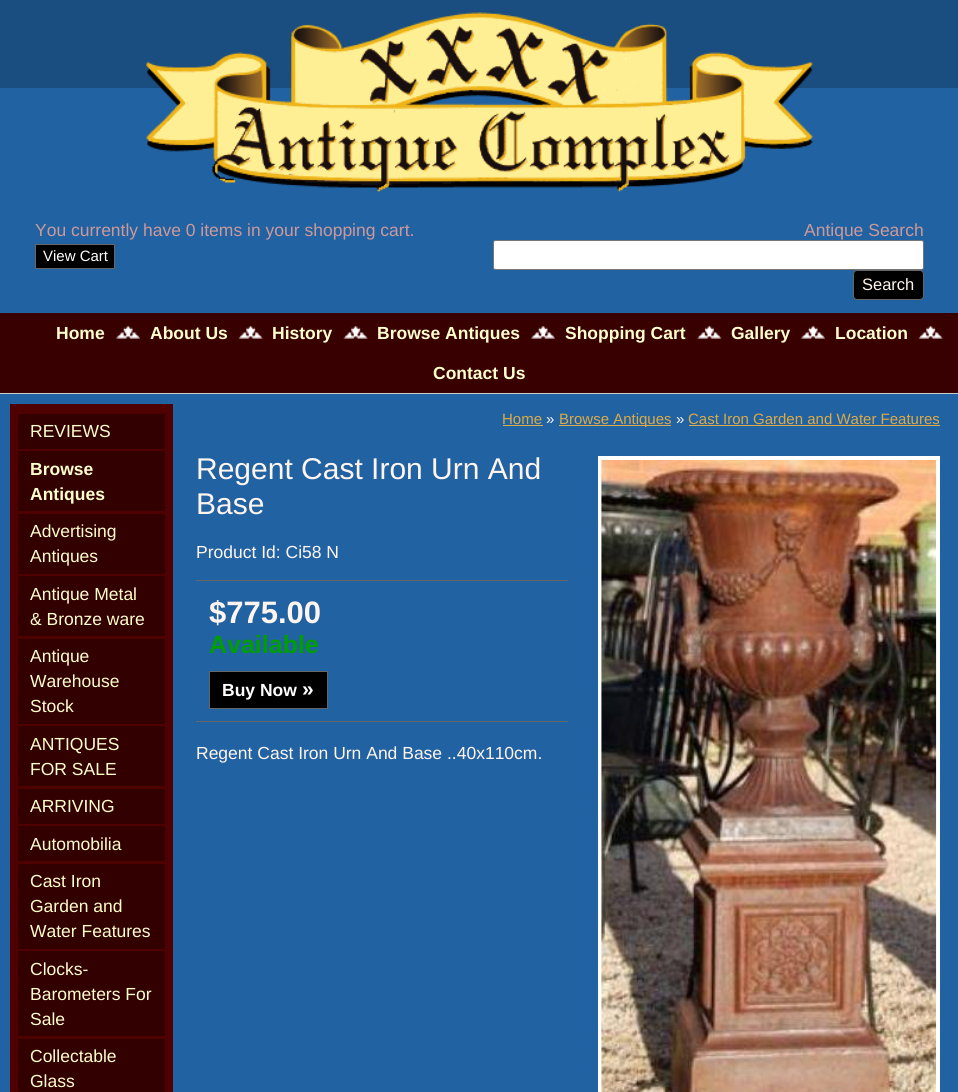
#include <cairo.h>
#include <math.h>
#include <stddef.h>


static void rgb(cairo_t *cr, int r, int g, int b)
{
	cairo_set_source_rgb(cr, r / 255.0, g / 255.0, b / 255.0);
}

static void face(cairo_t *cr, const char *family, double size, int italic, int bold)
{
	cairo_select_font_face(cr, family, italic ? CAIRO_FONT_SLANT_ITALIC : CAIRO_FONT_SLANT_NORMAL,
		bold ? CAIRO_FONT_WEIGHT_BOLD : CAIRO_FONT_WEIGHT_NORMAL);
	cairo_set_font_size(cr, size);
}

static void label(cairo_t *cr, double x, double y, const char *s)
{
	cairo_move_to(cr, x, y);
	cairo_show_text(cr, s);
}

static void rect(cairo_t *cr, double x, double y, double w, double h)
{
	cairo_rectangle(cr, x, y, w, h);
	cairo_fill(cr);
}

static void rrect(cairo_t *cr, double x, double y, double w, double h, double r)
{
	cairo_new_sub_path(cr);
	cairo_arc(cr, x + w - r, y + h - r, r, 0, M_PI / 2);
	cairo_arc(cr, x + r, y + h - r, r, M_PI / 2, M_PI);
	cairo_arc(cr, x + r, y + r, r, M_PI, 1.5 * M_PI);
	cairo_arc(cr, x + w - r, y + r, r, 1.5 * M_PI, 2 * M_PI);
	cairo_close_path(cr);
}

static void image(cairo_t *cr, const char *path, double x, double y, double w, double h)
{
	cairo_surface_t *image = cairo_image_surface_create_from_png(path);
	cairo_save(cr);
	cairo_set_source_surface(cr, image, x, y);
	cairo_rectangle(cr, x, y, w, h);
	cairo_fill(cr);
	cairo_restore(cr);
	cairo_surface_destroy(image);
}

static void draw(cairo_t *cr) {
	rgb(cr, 26, 77, 128);
	cairo_paint(cr);
	rgb(cr, 33, 98, 163);
	rect(cr, 0, 88, 958, 225);
	image(cr, "image0.png", 146, 12, 667, 180);
	face(cr, "Liberation Sans", 17.5, 0, 0);
	rgb(cr, 204, 153, 153);
	label(cr, 35, 236, "You currently have 0 items in your shopping cart.");
	rgb(cr, 0, 0, 0);
	cairo_rectangle(cr, 35.5, 244.5, 79, 24);
	cairo_fill_preserve(cr);
	rgb(cr, 102, 102, 102);
	cairo_set_line_width(cr, 1);
	cairo_stroke(cr);
	face(cr, "Liberation Sans", 15, 0, 0);
	rgb(cr, 255, 255, 255);
	label(cr, 43, 261, "View Cart");
	face(cr, "Liberation Sans", 17.5, 0, 0);
	rgb(cr, 204, 153, 153);
	label(cr, 804, 236, "Antique Search");
	rgb(cr, 255, 255, 255);
	rrect(cr, 493.5, 240.5, 430, 29, 2);
	cairo_fill_preserve(cr);
	rgb(cr, 118, 118, 118);
	cairo_stroke(cr);
	rgb(cr, 0, 0, 0);
	rrect(cr, 853.5, 270.5, 70, 29, 3.5);
	cairo_fill_preserve(cr);
	rgb(cr, 102, 102, 102);
	cairo_stroke(cr);
	face(cr, "Liberation Sans", 16.5, 0, 0);
	rgb(cr, 255, 245, 238);
	label(cr, 862, 290, "Search");
	rgb(cr, 33, 98, 163);
	rect(cr, 0, 394, 958, 698);
	rgb(cr, 57, 0, 0);
	rect(cr, 0, 313, 958, 80);
	rgb(cr, 204, 204, 204);
	rect(cr, 0, 393, 958, 1);
	face(cr, "Liberation Sans", 17.5, 0, 1);
	rgb(cr, 255, 255, 204);
	label(cr, 56, 339, "Home");
	image(cr, "image1.png", 116, 326, 24, 13);
	label(cr, 150, 339, "About Us");
	image(cr, "image2.png", 238, 326, 25, 13);
	label(cr, 272, 339, "History");
	image(cr, "image3.png", 343, 326, 25, 13);
	label(cr, 377, 339, "Browse Antiques");
	image(cr, "image1.png", 531, 326, 24, 13);
	label(cr, 565, 339, "Shopping Cart");
	image(cr, "image4.png", 697, 326, 25, 13);
	label(cr, 731, 339, "Gallery");
	image(cr, "image1.png", 801, 326, 24, 13);
	label(cr, 835, 339, "Location");
	image(cr, "image3.png", 918, 326, 25, 13);
	label(cr, 433, 379, "Contact Us");
	rgb(cr, 79, 0, 0);
	rect(cr, 10, 404, 163, 688);
	rgb(cr, 51, 0, 0);
	rect(cr, 18, 414, 147, 35);
	face(cr, "Liberation Sans", 17.5, 0, 0);
	rgb(cr, 255, 255, 204);
	label(cr, 30, 437, "REVIEWS");
	rgb(cr, 51, 0, 0);
	rect(cr, 18, 451, 147, 60);
	face(cr, "Liberation Sans", 17.5, 0, 1);
	rgb(cr, 255, 255, 204);
	label(cr, 30, 475, "Browse");
	label(cr, 30, 500, "Antiques");
	rgb(cr, 51, 0, 0);
	rect(cr, 18, 514, 147, 60);
	face(cr, "Liberation Sans", 17.5, 0, 0);
	rgb(cr, 255, 255, 204);
	label(cr, 30, 537, "Advertising");
	label(cr, 30, 562, "Antiques");
	rgb(cr, 51, 0, 0);
	rect(cr, 18, 576, 147, 60);
	rgb(cr, 255, 255, 204);
	label(cr, 30, 600, "Antique Metal");
	label(cr, 30, 625, "& Bronze ware");
	rgb(cr, 51, 0, 0);
	rect(cr, 18, 639, 147, 85);
	rgb(cr, 255, 255, 204);
	label(cr, 30, 662, "Antique");
	label(cr, 30, 687, "Warehouse");
	label(cr, 30, 712, "Stock");
	rgb(cr, 51, 0, 0);
	rect(cr, 18, 726, 147, 60);
	rgb(cr, 255, 255, 204);
	label(cr, 30, 750, "ANTIQUES");
	label(cr, 30, 775, "FOR SALE");
	rgb(cr, 51, 0, 0);
	rect(cr, 18, 789, 147, 35);
	rgb(cr, 255, 255, 204);
	label(cr, 30, 812, "ARRIVING");
	rgb(cr, 51, 0, 0);
	rect(cr, 18, 826, 147, 35);
	rgb(cr, 255, 255, 204);
	label(cr, 30, 850, "Automobilia");
	rgb(cr, 51, 0, 0);
	rect(cr, 18, 864, 147, 85);
	rgb(cr, 255, 255, 204);
	label(cr, 30, 887, "Cast Iron");
	label(cr, 30, 912, "Garden and");
	label(cr, 30, 937, "Water Features");
	rgb(cr, 51, 0, 0);
	rect(cr, 18, 951, 147, 85);
	rgb(cr, 255, 255, 204);
	label(cr, 30, 975, "Clocks-");
	label(cr, 30, 1000, "Barometers For");
	label(cr, 30, 1025, "Sale");
	rgb(cr, 51, 0, 0);
	rect(cr, 18, 1039, 147, 53);
	rgb(cr, 255, 255, 204);
	label(cr, 30, 1062, "Collectable");
	label(cr, 30, 1087, "Glass");
	face(cr, "Liberation Sans", 15, 0, 0);
	rgb(cr, 221, 170, 68);
	label(cr, 502, 424, "Home");
	rect(cr, 503, 425, 40, 1);
	rgb(cr, 255, 245, 238);
	label(cr, 546, 424, "»");
	rgb(cr, 221, 170, 68);
	rect(cr, 559, 425, 112, 1);
	label(cr, 559, 424, "Browse Antiques");
	rgb(cr, 255, 245, 238);
	label(cr, 676, 424, "»");
	rgb(cr, 221, 170, 68);
	label(cr, 688, 424, "Cast Iron Garden and Water Features");
	rect(cr, 689, 425, 251, 1);
	face(cr, "Liberation Sans", 30, 0, 0);
	rgb(cr, 255, 245, 238);
	label(cr, 196, 479, "Regent Cast Iron Urn And");
	label(cr, 196, 514, "Base");
	face(cr, "Liberation Sans", 17.5, 0, 0);
	label(cr, 196, 558, "Product Id: Ci58 N");
	rgb(cr, 102, 102, 102);
	rect(cr, 196, 580, 372, 1);
	face(cr, "Liberation Sans", 31, 0, 1);
	rgb(cr, 255, 245, 238);
	label(cr, 209, 623, "$775.00");
	face(cr, "Liberation Sans", 25, 0, 1);
	rgb(cr, 0, 159, 0);
	label(cr, 209, 653, "Available");
	rgb(cr, 102, 102, 102);
	rect(cr, 196, 721, 372, 1);
	rgb(cr, 0, 0, 0);
	cairo_rectangle(cr, 209.5, 671.5, 118, 37);
	cairo_fill_preserve(cr);
	rgb(cr, 102, 102, 102);
	cairo_stroke(cr);
	face(cr, "Liberation Sans", 17.5, 0, 1);
	rgb(cr, 255, 255, 255);
	label(cr, 222, 696, "Buy Now");
	face(cr, "Liberation Sans", 21, 0, 1);
	label(cr, 302, 696, "»");
	face(cr, "Liberation Sans", 17.5, 0, 0);
	rgb(cr, 255, 245, 238);
	label(cr, 196, 759, "Regent Cast Iron Urn And Base ..40x110cm.");
	cairo_rectangle(cr, 600, 458, 338, 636);
	rgb(cr, 255, 255, 255);
	cairo_set_line_width(cr, 4);
	cairo_stroke(cr);
	image(cr, "image5.png", 601, 460, 336, 632);
}

int main(void) {
	cairo_surface_t *surface = cairo_image_surface_create(CAIRO_FORMAT_RGB24, 958, 1092);
	cairo_t *cr = cairo_create(surface);
	cairo_font_options_t *options = cairo_font_options_create();
	cairo_font_options_set_hint_metrics(options, CAIRO_HINT_METRICS_OFF);
	cairo_font_options_set_hint_style(options, CAIRO_HINT_STYLE_NONE);
	cairo_set_font_options(cr, options);
	cairo_set_miter_limit(cr, 4);
	draw(cr);
	cairo_surface_write_to_png(surface, "render.png");
	cairo_font_options_destroy(options);
	cairo_destroy(cr);
	cairo_surface_destroy(surface);
	return 0;
}
